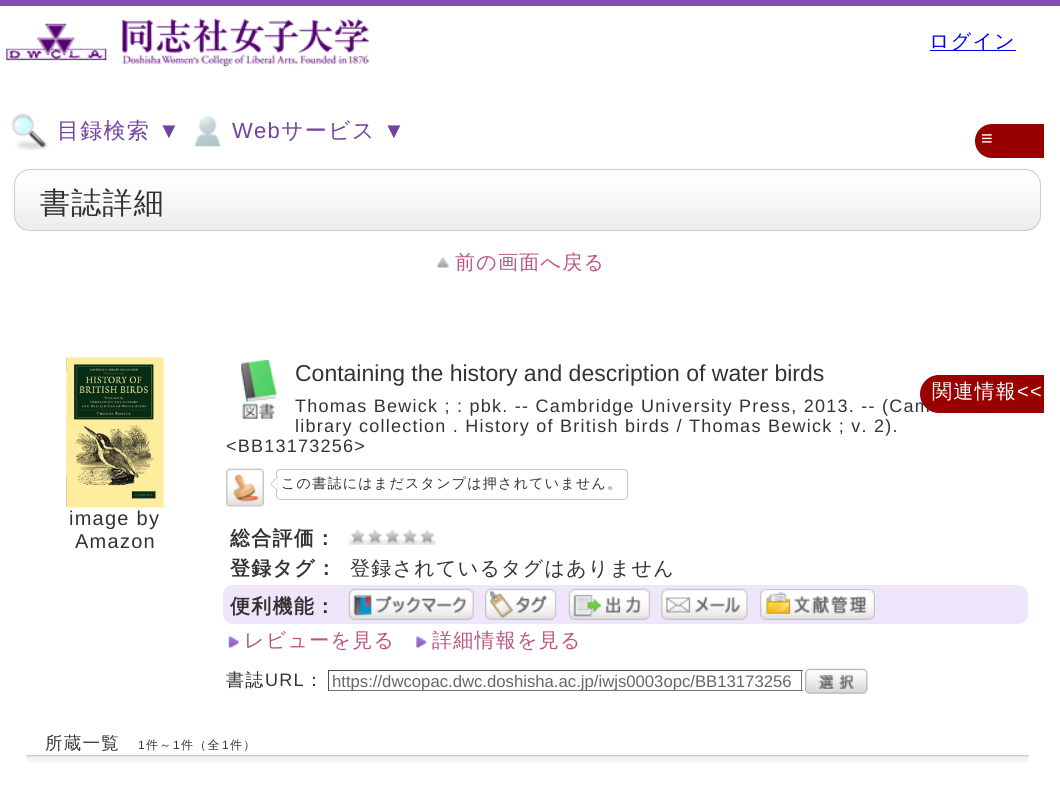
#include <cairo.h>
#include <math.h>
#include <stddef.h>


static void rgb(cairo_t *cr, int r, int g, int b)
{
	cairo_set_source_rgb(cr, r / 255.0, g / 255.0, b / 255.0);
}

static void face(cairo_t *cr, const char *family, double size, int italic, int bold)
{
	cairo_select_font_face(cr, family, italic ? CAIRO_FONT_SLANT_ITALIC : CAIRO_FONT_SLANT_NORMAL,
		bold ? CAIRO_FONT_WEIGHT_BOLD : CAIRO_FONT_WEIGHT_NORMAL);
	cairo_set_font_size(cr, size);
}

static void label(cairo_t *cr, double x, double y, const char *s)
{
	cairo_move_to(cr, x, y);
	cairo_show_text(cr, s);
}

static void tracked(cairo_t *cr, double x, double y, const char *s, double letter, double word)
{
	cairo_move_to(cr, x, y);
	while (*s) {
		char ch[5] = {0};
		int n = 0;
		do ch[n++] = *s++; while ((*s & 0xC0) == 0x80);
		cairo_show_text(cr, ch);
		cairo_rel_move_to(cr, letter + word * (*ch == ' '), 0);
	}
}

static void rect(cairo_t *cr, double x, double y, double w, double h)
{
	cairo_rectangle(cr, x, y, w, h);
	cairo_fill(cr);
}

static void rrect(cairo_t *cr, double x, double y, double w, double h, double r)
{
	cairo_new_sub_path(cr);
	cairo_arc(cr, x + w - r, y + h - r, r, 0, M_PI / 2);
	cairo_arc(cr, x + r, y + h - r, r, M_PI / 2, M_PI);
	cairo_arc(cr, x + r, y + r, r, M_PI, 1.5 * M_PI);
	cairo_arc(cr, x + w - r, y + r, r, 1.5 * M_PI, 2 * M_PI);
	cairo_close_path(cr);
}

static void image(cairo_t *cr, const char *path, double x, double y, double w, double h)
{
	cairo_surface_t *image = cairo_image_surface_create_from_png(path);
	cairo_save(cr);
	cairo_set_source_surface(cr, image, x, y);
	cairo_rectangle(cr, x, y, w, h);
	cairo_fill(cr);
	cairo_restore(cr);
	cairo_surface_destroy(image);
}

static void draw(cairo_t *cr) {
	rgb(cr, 255, 255, 255);
	cairo_paint(cr);
	rgb(cr, 133, 79, 186);
	rect(cr, 0, 0, 1060, 6);
	image(cr, "image0.png", 6, 18, 363, 49);
	rgb(cr, 0, 0, 238);
	rect(cr, 930, 50, 86, 1);
	face(cr, "WenQuanYi Zen Hei Medium", 20, 0, 0);
	tracked(cr, 929, 48, "ログイン", 1.25, 0);
	image(cr, "image1.png", 11, 113, 38, 37);
	face(cr, "WenQuanYi Zen Hei Medium", 22, 0, 0);
	rgb(cr, 114, 67, 160);
	tracked(cr, 57, 138, "目録検索", 1.25, 0);
	face(cr, "Liberation Sans", 22, 0, 0);
	tracked(cr, 158, 138, "▼", 1.25, 0);
	image(cr, "image2.png", 195, 116, 26, 31);
	tracked(cr, 232, 138, "Web", 1.25, 0);
	face(cr, "WenQuanYi Zen Hei Medium", 22, 0, 0);
	tracked(cr, 281, 138, "サービス", 1.25, 0);
	face(cr, "Liberation Sans", 22, 0, 0);
	tracked(cr, 383, 138, "▼", 1.25, 0);
	rgb(cr, 153, 0, 0);
	cairo_new_path(cr);
	cairo_move_to(cr, 992, 124);
	cairo_line_to(cr, 1044, 124);
	cairo_line_to(cr, 1044, 158);
	cairo_line_to(cr, 992, 158);
	cairo_curve_to(cr, 982.5, 158, 975, 150.5, 975, 141);
	cairo_curve_to(cr, 975, 131.5, 982.5, 124, 992, 124);
	cairo_close_path(cr);
	cairo_fill(cr);
	face(cr, "Liberation Sans", 20, 0, 0);
	rgb(cr, 255, 255, 255);
	tracked(cr, 981, 145, "≡", 1.25, 0);
	image(cr, "image3.png", 14, 169, 1027, 61);
	rrect(cr, 14.5, 169.5, 1026, 61, 15.5);
	rgb(cr, 204, 204, 204);
	cairo_set_line_width(cr, 1);
	cairo_stroke(cr);
	face(cr, "WenQuanYi Zen Hei Medium", 30, 0, 0);
	rgb(cr, 51, 51, 51);
	tracked(cr, 40, 213, "書誌詳細", 1.25, 0);
	image(cr, "image4.png", 437, 257, 12, 11);
	face(cr, "WenQuanYi Zen Hei Medium", 20, 0, 0);
	rgb(cr, 186, 85, 130);
	tracked(cr, 455, 269, "前の画面へ戻る", 1.25, 0);
	image(cr, "image5.png", 66, 357, 98, 151);
	face(cr, "Liberation Sans", 20, 0, 0);
	rgb(cr, 51, 51, 51);
	tracked(cr, 69, 525, "image by", 1.25, 0);
	tracked(cr, 75, 548, "Amazon", 1.25, 0);
	image(cr, "image6.png", 241, 359, 36, 60);
	face(cr, "Liberation Sans", 23, 0, 0);
	label(cr, 295, 381, "Containing the history and description of water birds");
	face(cr, "Liberation Sans", 18, 0, 0);
	tracked(cr, 295, 412, "Thomas Bewick ; : pbk. -- Cambridge University Press, 2013. -- (Cam", 1.25, 0);
	tracked(cr, 295, 432, "library collection . History of British birds / Thomas Bewick ; v. 2).", 1.25, 0);
	tracked(cr, 226, 452, "<BB13173256>", 1.25, 0);
	image(cr, "image7.png", 226, 468, 38, 39);
	image(cr, "image8.png", 226, 468, 38, 39);
	rrect(cr, 276.5, 469.5, 351, 30, 3.5);
	rgb(cr, 198, 198, 198);
	cairo_stroke(cr);
	cairo_new_path(cr);
	cairo_move_to(cr, 277.5, 476);
	cairo_line_to(cr, 277.5, 491);
	cairo_line_to(cr, 270, 484);
	cairo_close_path(cr);
	cairo_fill(cr);
	face(cr, "WenQuanYi Zen Hei Medium", 14, 0, 0);
	rgb(cr, 51, 51, 51);
	tracked(cr, 281, 488, "この書誌にはまだスタンプは押されていません。", 1.25, 0);
	rgb(cr, 255, 255, 255);
	cairo_new_path(cr);
	cairo_move_to(cr, 277.5, 477.5);
	cairo_line_to(cr, 277.5, 490);
	cairo_line_to(cr, 271, 484);
	cairo_close_path(cr);
	cairo_fill(cr);
	face(cr, "WenQuanYi Zen Hei", 20, 0, 1);
	rgb(cr, 51, 51, 51);
	tracked(cr, 230, 545, "総合評価：", 1.25, 0);
	image(cr, "image9.png", 348, 529, 88, 16);
	tracked(cr, 230, 575, "登録タグ：", 1.25, 0);
	face(cr, "WenQuanYi Zen Hei Medium", 20, 0, 0);
	tracked(cr, 350, 575, "登録されているタグはありません", 1.25, 0);
	rgb(cr, 240, 230, 251);
	rrect(cr, 223, 585, 805, 39, 10);
	cairo_fill(cr);
	face(cr, "WenQuanYi Zen Hei", 20, 0, 1);
	rgb(cr, 51, 51, 51);
	tracked(cr, 230, 613, "便利機能：", 1.25, 0);
	image(cr, "image10.png", 348, 588, 126, 32);
	image(cr, "image11.png", 485, 588, 72, 32);
	image(cr, "image12.png", 568, 588, 82, 32);
	image(cr, "image13.png", 661, 588, 87, 32);
	image(cr, "image14.png", 760, 589, 115, 31);
	image(cr, "image15.png", 228, 636, 11, 12);
	face(cr, "WenQuanYi Zen Hei Medium", 20, 0, 0);
	rgb(cr, 186, 85, 130);
	tracked(cr, 244, 647, "レビューを見る", 1.25, 0);
	image(cr, "image16.png", 416, 636, 11, 12);
	tracked(cr, 432, 647, "詳細情報を見る", 1.25, 0);
	face(cr, "WenQuanYi Zen Hei Medium", 18, 0, 0);
	rgb(cr, 51, 51, 51);
	tracked(cr, 226, 686, "書誌", 1.25, 0);
	face(cr, "Liberation Sans", 18, 0, 0);
	tracked(cr, 265, 686, "URL", 1.25, 0);
	face(cr, "WenQuanYi Zen Hei Medium", 18, 0, 0);
	tracked(cr, 305, 686, "：", 1.25, 0);
	rgb(cr, 79, 79, 79);
	rect(cr, 328, 670, 475, 1);
	rgb(cr, 118, 118, 118);
	rect(cr, 801, 670, 1, 21);
	rect(cr, 328, 690, 475, 1);
	rgb(cr, 79, 79, 79);
	rect(cr, 328, 670, 1, 21);
	cairo_save(cr);
	cairo_rectangle(cr, 333, 671, 468, 19);
	cairo_clip(cr);
	face(cr, "Liberation Sans", 16.7, 0, 0);
	rgb(cr, 102, 102, 102);
	label(cr, 332, 687, "https://dwcopac.dwc.doshisha.ac.jp/iwjs0003opc/BB13173256");
	cairo_restore(cr);
	image(cr, "image17.png", 805, 668, 63, 26);
	image(cr, "image18.png", 26, 755, 1003, 8);
	face(cr, "WenQuanYi Zen Hei Medium", 17.5, 0, 0);
	rgb(cr, 51, 51, 51);
	tracked(cr, 45, 749, "所蔵一覧", 1.25, 0);
	face(cr, "Liberation Sans", 12, 0, 0);
	tracked(cr, 138, 749, "1", 1.25, 0);
	face(cr, "WenQuanYi Zen Hei Medium", 12, 0, 0);
	tracked(cr, 146, 749, "件～", 1.25, 0);
	face(cr, "Liberation Sans", 12, 0, 0);
	tracked(cr, 173, 749, "1", 1.25, 0);
	face(cr, "WenQuanYi Zen Hei Medium", 12, 0, 0);
	tracked(cr, 181, 749, "件（全", 1.25, 0);
	face(cr, "Liberation Sans", 12, 0, 0);
	tracked(cr, 222, 749, "1", 1.25, 0);
	face(cr, "WenQuanYi Zen Hei Medium", 12, 0, 0);
	tracked(cr, 230, 749, "件）", 1.25, 0);
	rgb(cr, 153, 0, 0);
	cairo_new_path(cr);
	cairo_move_to(cr, 939, 375);
	cairo_line_to(cr, 1044, 375);
	cairo_line_to(cr, 1044, 413);
	cairo_line_to(cr, 939, 413);
	cairo_curve_to(cr, 928.5, 413, 920, 404.5, 920, 394);
	cairo_curve_to(cr, 920, 383.5, 928.5, 375, 939, 375);
	cairo_close_path(cr);
	cairo_fill(cr);
	face(cr, "WenQuanYi Zen Hei Medium", 20, 0, 0);
	rgb(cr, 255, 255, 255);
	tracked(cr, 932, 398, "関連情報", 1.25, 0);
	face(cr, "Liberation Sans", 20, 0, 0);
	tracked(cr, 1017, 398, "<<", 1.25, 0);
}

int main(void) {
	cairo_surface_t *surface = cairo_image_surface_create(CAIRO_FORMAT_RGB24, 1060, 790);
	cairo_t *cr = cairo_create(surface);
	cairo_font_options_t *options = cairo_font_options_create();
	cairo_font_options_set_hint_metrics(options, CAIRO_HINT_METRICS_OFF);
	cairo_font_options_set_hint_style(options, CAIRO_HINT_STYLE_NONE);
	cairo_set_font_options(cr, options);
	cairo_set_miter_limit(cr, 4);
	draw(cr);
	cairo_surface_write_to_png(surface, "render.png");
	cairo_font_options_destroy(options);
	cairo_destroy(cr);
	cairo_surface_destroy(surface);
	return 0;
}
